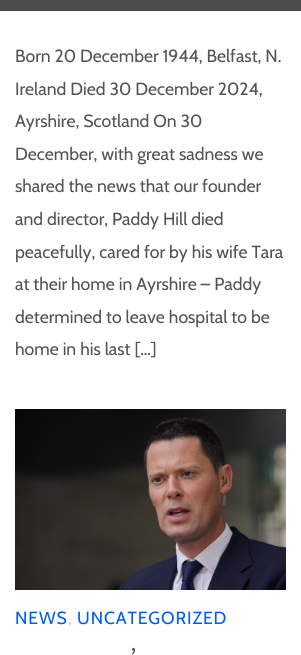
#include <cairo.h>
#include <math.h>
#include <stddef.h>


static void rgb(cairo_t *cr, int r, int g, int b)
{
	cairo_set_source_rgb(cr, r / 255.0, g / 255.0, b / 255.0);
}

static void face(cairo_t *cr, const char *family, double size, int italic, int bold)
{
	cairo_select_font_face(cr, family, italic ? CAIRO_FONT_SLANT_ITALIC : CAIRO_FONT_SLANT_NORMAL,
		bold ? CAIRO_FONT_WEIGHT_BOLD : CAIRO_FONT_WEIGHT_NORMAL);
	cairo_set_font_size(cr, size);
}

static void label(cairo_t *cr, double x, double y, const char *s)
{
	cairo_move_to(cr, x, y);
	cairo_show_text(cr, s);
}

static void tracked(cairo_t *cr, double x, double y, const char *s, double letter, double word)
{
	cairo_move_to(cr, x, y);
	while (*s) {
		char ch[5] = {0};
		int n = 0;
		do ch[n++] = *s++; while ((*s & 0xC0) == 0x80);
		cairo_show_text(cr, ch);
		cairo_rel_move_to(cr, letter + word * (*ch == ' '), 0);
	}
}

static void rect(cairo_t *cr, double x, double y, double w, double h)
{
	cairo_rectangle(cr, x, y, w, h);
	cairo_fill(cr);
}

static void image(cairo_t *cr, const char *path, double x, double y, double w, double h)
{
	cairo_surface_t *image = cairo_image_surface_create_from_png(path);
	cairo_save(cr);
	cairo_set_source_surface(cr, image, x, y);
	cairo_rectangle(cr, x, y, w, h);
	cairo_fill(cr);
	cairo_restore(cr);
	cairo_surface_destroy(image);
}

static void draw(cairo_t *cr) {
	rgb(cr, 255, 255, 255);
	cairo_paint(cr);
	cairo_set_source_rgba(cr, 0, 0, 0, 0.7);
	rect(cr, 0, 0, 301, 11);
	cairo_set_source_rgba(cr, 0, 0, 0, 0.1);
	rect(cr, 0, 10, 301, 1);
	face(cr, "Cabin", 17.6, 0, 0);
	rgb(cr, 82, 82, 82);
	label(cr, 15, 62, "Born 20 December 1944, Belfast, N.");
	label(cr, 15, 95, "Ireland Died 30 December 2024,");
	label(cr, 15, 127, "Ayrshire, Scotland On 30");
	label(cr, 15, 160, "December, with great sadness we");
	label(cr, 15, 192, "shared the news that our founder");
	label(cr, 15, 225, "and director, Paddy Hill died");
	label(cr, 15, 258, "peacefully, cared for by his wife Tara");
	label(cr, 15, 290, "at their home in Ayrshire – Paddy");
	label(cr, 15, 323, "determined to leave hospital to be");
	label(cr, 15, 355, "home in his last […]");
	image(cr, "image0.png", 15, 409, 271, 181);
	rgb(cr, 0, 94, 237);
	tracked(cr, 15, 624, "NEWS", 0.9, 0);
	rgb(cr, 204, 204, 204);
	tracked(cr, 68, 624, ",", 0.9, 0);
	rgb(cr, 0, 94, 237);
	tracked(cr, 77, 624, "UNCATEGORIZED", 0.9, 0);
	face(cr, "Source Sans Pro", 26, 0, 0);
	rgb(cr, 82, 82, 82);
	tracked(cr, 130, 666, "’", -1, 0);
}

int main(void) {
	cairo_surface_t *surface = cairo_image_surface_create(CAIRO_FORMAT_RGB24, 301, 655);
	cairo_t *cr = cairo_create(surface);
	cairo_font_options_t *options = cairo_font_options_create();
	cairo_font_options_set_hint_metrics(options, CAIRO_HINT_METRICS_OFF);
	cairo_font_options_set_hint_style(options, CAIRO_HINT_STYLE_NONE);
	cairo_set_font_options(cr, options);
	cairo_set_miter_limit(cr, 4);
	draw(cr);
	cairo_surface_write_to_png(surface, "render.png");
	cairo_font_options_destroy(options);
	cairo_destroy(cr);
	cairo_surface_destroy(surface);
	return 0;
}
